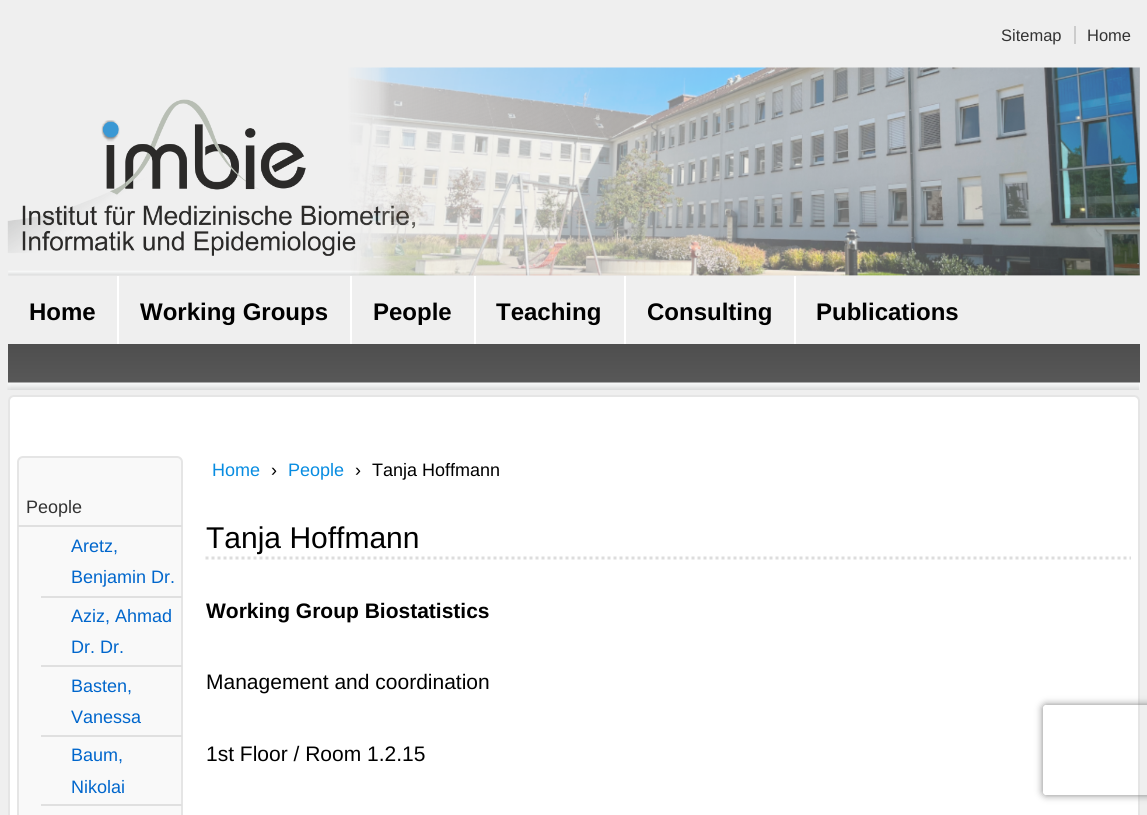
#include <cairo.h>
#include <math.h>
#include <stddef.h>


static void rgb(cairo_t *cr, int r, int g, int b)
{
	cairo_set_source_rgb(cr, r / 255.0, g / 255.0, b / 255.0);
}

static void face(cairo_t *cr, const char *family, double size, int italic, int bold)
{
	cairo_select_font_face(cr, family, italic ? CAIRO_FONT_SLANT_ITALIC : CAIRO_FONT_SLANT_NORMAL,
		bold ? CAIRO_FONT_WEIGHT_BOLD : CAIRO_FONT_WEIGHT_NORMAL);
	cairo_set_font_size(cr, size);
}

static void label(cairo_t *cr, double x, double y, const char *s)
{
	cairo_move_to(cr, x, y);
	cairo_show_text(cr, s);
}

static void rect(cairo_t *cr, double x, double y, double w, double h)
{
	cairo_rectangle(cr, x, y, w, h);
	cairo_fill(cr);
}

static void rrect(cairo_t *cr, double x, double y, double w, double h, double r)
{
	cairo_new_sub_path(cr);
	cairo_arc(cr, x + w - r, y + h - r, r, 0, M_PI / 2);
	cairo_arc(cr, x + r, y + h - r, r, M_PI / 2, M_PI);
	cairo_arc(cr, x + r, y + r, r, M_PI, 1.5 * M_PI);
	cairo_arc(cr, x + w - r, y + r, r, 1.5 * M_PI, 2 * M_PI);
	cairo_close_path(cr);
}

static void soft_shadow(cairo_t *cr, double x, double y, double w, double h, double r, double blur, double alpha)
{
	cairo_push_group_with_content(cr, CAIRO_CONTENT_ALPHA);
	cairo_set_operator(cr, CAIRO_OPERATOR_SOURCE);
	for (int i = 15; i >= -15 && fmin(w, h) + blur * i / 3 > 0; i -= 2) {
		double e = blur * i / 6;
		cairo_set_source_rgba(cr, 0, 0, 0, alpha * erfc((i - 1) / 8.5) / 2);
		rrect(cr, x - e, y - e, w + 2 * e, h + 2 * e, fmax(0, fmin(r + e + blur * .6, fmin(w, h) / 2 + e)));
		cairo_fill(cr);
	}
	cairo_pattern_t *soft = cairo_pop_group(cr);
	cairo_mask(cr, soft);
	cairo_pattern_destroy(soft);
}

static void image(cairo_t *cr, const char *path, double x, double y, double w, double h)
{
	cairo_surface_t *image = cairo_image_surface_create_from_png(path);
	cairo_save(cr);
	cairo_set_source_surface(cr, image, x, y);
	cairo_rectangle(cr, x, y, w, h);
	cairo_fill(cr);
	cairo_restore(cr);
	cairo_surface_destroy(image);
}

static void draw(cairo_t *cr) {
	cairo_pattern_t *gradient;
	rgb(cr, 239, 239, 239);
	cairo_paint(cr);
	face(cr, "Liberation Sans", 16.5, 0, 0);
	rgb(cr, 51, 51, 51);
	label(cr, 1001, 41, "Sitemap");
	label(cr, 1087, 41, "Home");
	rgb(cr, 204, 204, 204);
	rect(cr, 1074, 26, 2, 18);
	image(cr, "image0.png", 7, 67, 1133, 209);
	gradient = cairo_pattern_create_linear(574, 383, 574, 276);
	cairo_pattern_add_color_stop_rgba(gradient, 0, 0.345, 0.345, 0.345, 1);
	cairo_pattern_add_color_stop_rgba(gradient, 1, 0.239, 0.239, 0.239, 1);
	cairo_set_source(cr, gradient);
	cairo_pattern_destroy(gradient);
	rect(cr, 8, 344, 1132, 39);
	face(cr, "Liberation Sans", 24, 0, 1);
	rgb(cr, 0, 0, 0);
	label(cr, 29, 320, "Home");
	rgb(cr, 255, 255, 255);
	rect(cr, 117, 276, 2, 68);
	rgb(cr, 0, 0, 0);
	label(cr, 140, 320, "Working Groups");
	rgb(cr, 255, 255, 255);
	rect(cr, 350, 276, 2, 68);
	rgb(cr, 0, 0, 0);
	label(cr, 373, 320, "People");
	rgb(cr, 255, 255, 255);
	rect(cr, 474, 276, 2, 68);
	rgb(cr, 0, 0, 0);
	label(cr, 496, 320, "Teaching");
	rgb(cr, 255, 255, 255);
	rect(cr, 624, 276, 2, 68);
	rgb(cr, 0, 0, 0);
	label(cr, 647, 320, "Consulting");
	rgb(cr, 255, 255, 255);
	rect(cr, 794, 276, 2, 68);
	rgb(cr, 0, 0, 0);
	label(cr, 816, 320, "Publications");
	image(cr, "image1.png", 7, 382, 1133, 8);
	rgb(cr, 255, 255, 255);
	rrect(cr, 9, 396, 1130, 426, 5);
	cairo_fill_preserve(cr);
	rgb(cr, 229, 229, 229);
	cairo_stroke(cr);
	rgb(cr, 249, 249, 249);
	rrect(cr, 18, 457, 164, 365, 5);
	cairo_fill_preserve(cr);
	rgb(cr, 229, 229, 229);
	cairo_stroke(cr);
	rgb(cr, 224, 224, 224);
	rect(cr, 18, 525, 164, 2);
	face(cr, "Liberation Sans", 18, 0, 0);
	rgb(cr, 51, 51, 51);
	label(cr, 26, 513, "People");
	rgb(cr, 224, 224, 224);
	rect(cr, 41, 596, 141, 2);
	rgb(cr, 0, 102, 204);
	label(cr, 71, 552, "Aretz,");
	label(cr, 71, 583, "Benjamin Dr.");
	rgb(cr, 224, 224, 224);
	rect(cr, 41, 665, 141, 2);
	rgb(cr, 0, 102, 204);
	label(cr, 71, 622, "Aziz, Ahmad");
	label(cr, 71, 653, "Dr. Dr.");
	rgb(cr, 224, 224, 224);
	rect(cr, 41, 735, 141, 2);
	rgb(cr, 0, 102, 204);
	label(cr, 71, 692, "Basten,");
	label(cr, 71, 723, "Vanessa");
	rgb(cr, 224, 224, 224);
	rect(cr, 41, 804, 141, 2);
	rgb(cr, 0, 102, 204);
	label(cr, 71, 761, "Baum,");
	label(cr, 71, 793, "Nikolai");
	rgb(cr, 7, 140, 225);
	label(cr, 212, 476, "Home");
	rgb(cr, 0, 0, 0);
	label(cr, 271, 476, "›");
	rgb(cr, 7, 140, 225);
	label(cr, 288, 476, "People");
	rgb(cr, 0, 0, 0);
	label(cr, 355, 476, "›");
	label(cr, 372, 476, "Tanja Hoffmann");
	cairo_new_path(cr);
	cairo_move_to(cr, 205.5, 558);
	cairo_line_to(cr, 1131, 558);
	rgb(cr, 221, 221, 221);
	cairo_set_line_width(cr, 3);
	cairo_set_dash(cr, (double[]){3, 3}, 2, 0);
	cairo_stroke(cr);
	face(cr, "Liberation Sans", 30, 0, 0);
	rgb(cr, 0, 0, 0);
	label(cr, 206, 548, "Tanja Hoffmann");
	face(cr, "Liberation Sans", 21, 0, 1);
	label(cr, 206, 618, "Working Group Biostatistics");
	face(cr, "Liberation Sans", 21, 0, 0);
	label(cr, 206, 689, "Management and coordination");
	label(cr, 206, 761, "1st Floor / Room 1.2.15");
	cairo_save(cr);
	cairo_set_fill_rule(cr, CAIRO_FILL_RULE_EVEN_ODD);
	cairo_new_path(cr);
	cairo_move_to(cr, 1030, 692);
	cairo_line_to(cr, 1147, 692);
	cairo_line_to(cr, 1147, 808);
	cairo_line_to(cr, 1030, 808);
	cairo_close_path(cr);
	cairo_move_to(cr, 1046, 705);
	cairo_line_to(cr, 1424, 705);
	cairo_curve_to(cr, 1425.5, 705, 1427, 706.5, 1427, 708);
	cairo_line_to(cr, 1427, 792);
	cairo_curve_to(cr, 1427, 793.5, 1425.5, 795, 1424, 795);
	cairo_line_to(cr, 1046, 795);
	cairo_curve_to(cr, 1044.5, 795, 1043, 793.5, 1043, 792);
	cairo_line_to(cr, 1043, 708);
	cairo_curve_to(cr, 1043, 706.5, 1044.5, 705, 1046, 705);
	cairo_close_path(cr);
	cairo_clip(cr);
	rgb(cr, 128, 128, 128);
	soft_shadow(cr, 1043, 705, 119, 90, 3, 4, 1);
	cairo_restore(cr);
}

int main(void) {
	cairo_surface_t *surface = cairo_image_surface_create(CAIRO_FORMAT_RGB24, 1147, 815);
	cairo_t *cr = cairo_create(surface);
	cairo_font_options_t *options = cairo_font_options_create();
	cairo_font_options_set_hint_metrics(options, CAIRO_HINT_METRICS_OFF);
	cairo_font_options_set_hint_style(options, CAIRO_HINT_STYLE_NONE);
	cairo_set_font_options(cr, options);
	cairo_set_miter_limit(cr, 4);
	draw(cr);
	cairo_surface_write_to_png(surface, "render.png");
	cairo_font_options_destroy(options);
	cairo_destroy(cr);
	cairo_surface_destroy(surface);
	return 0;
}
